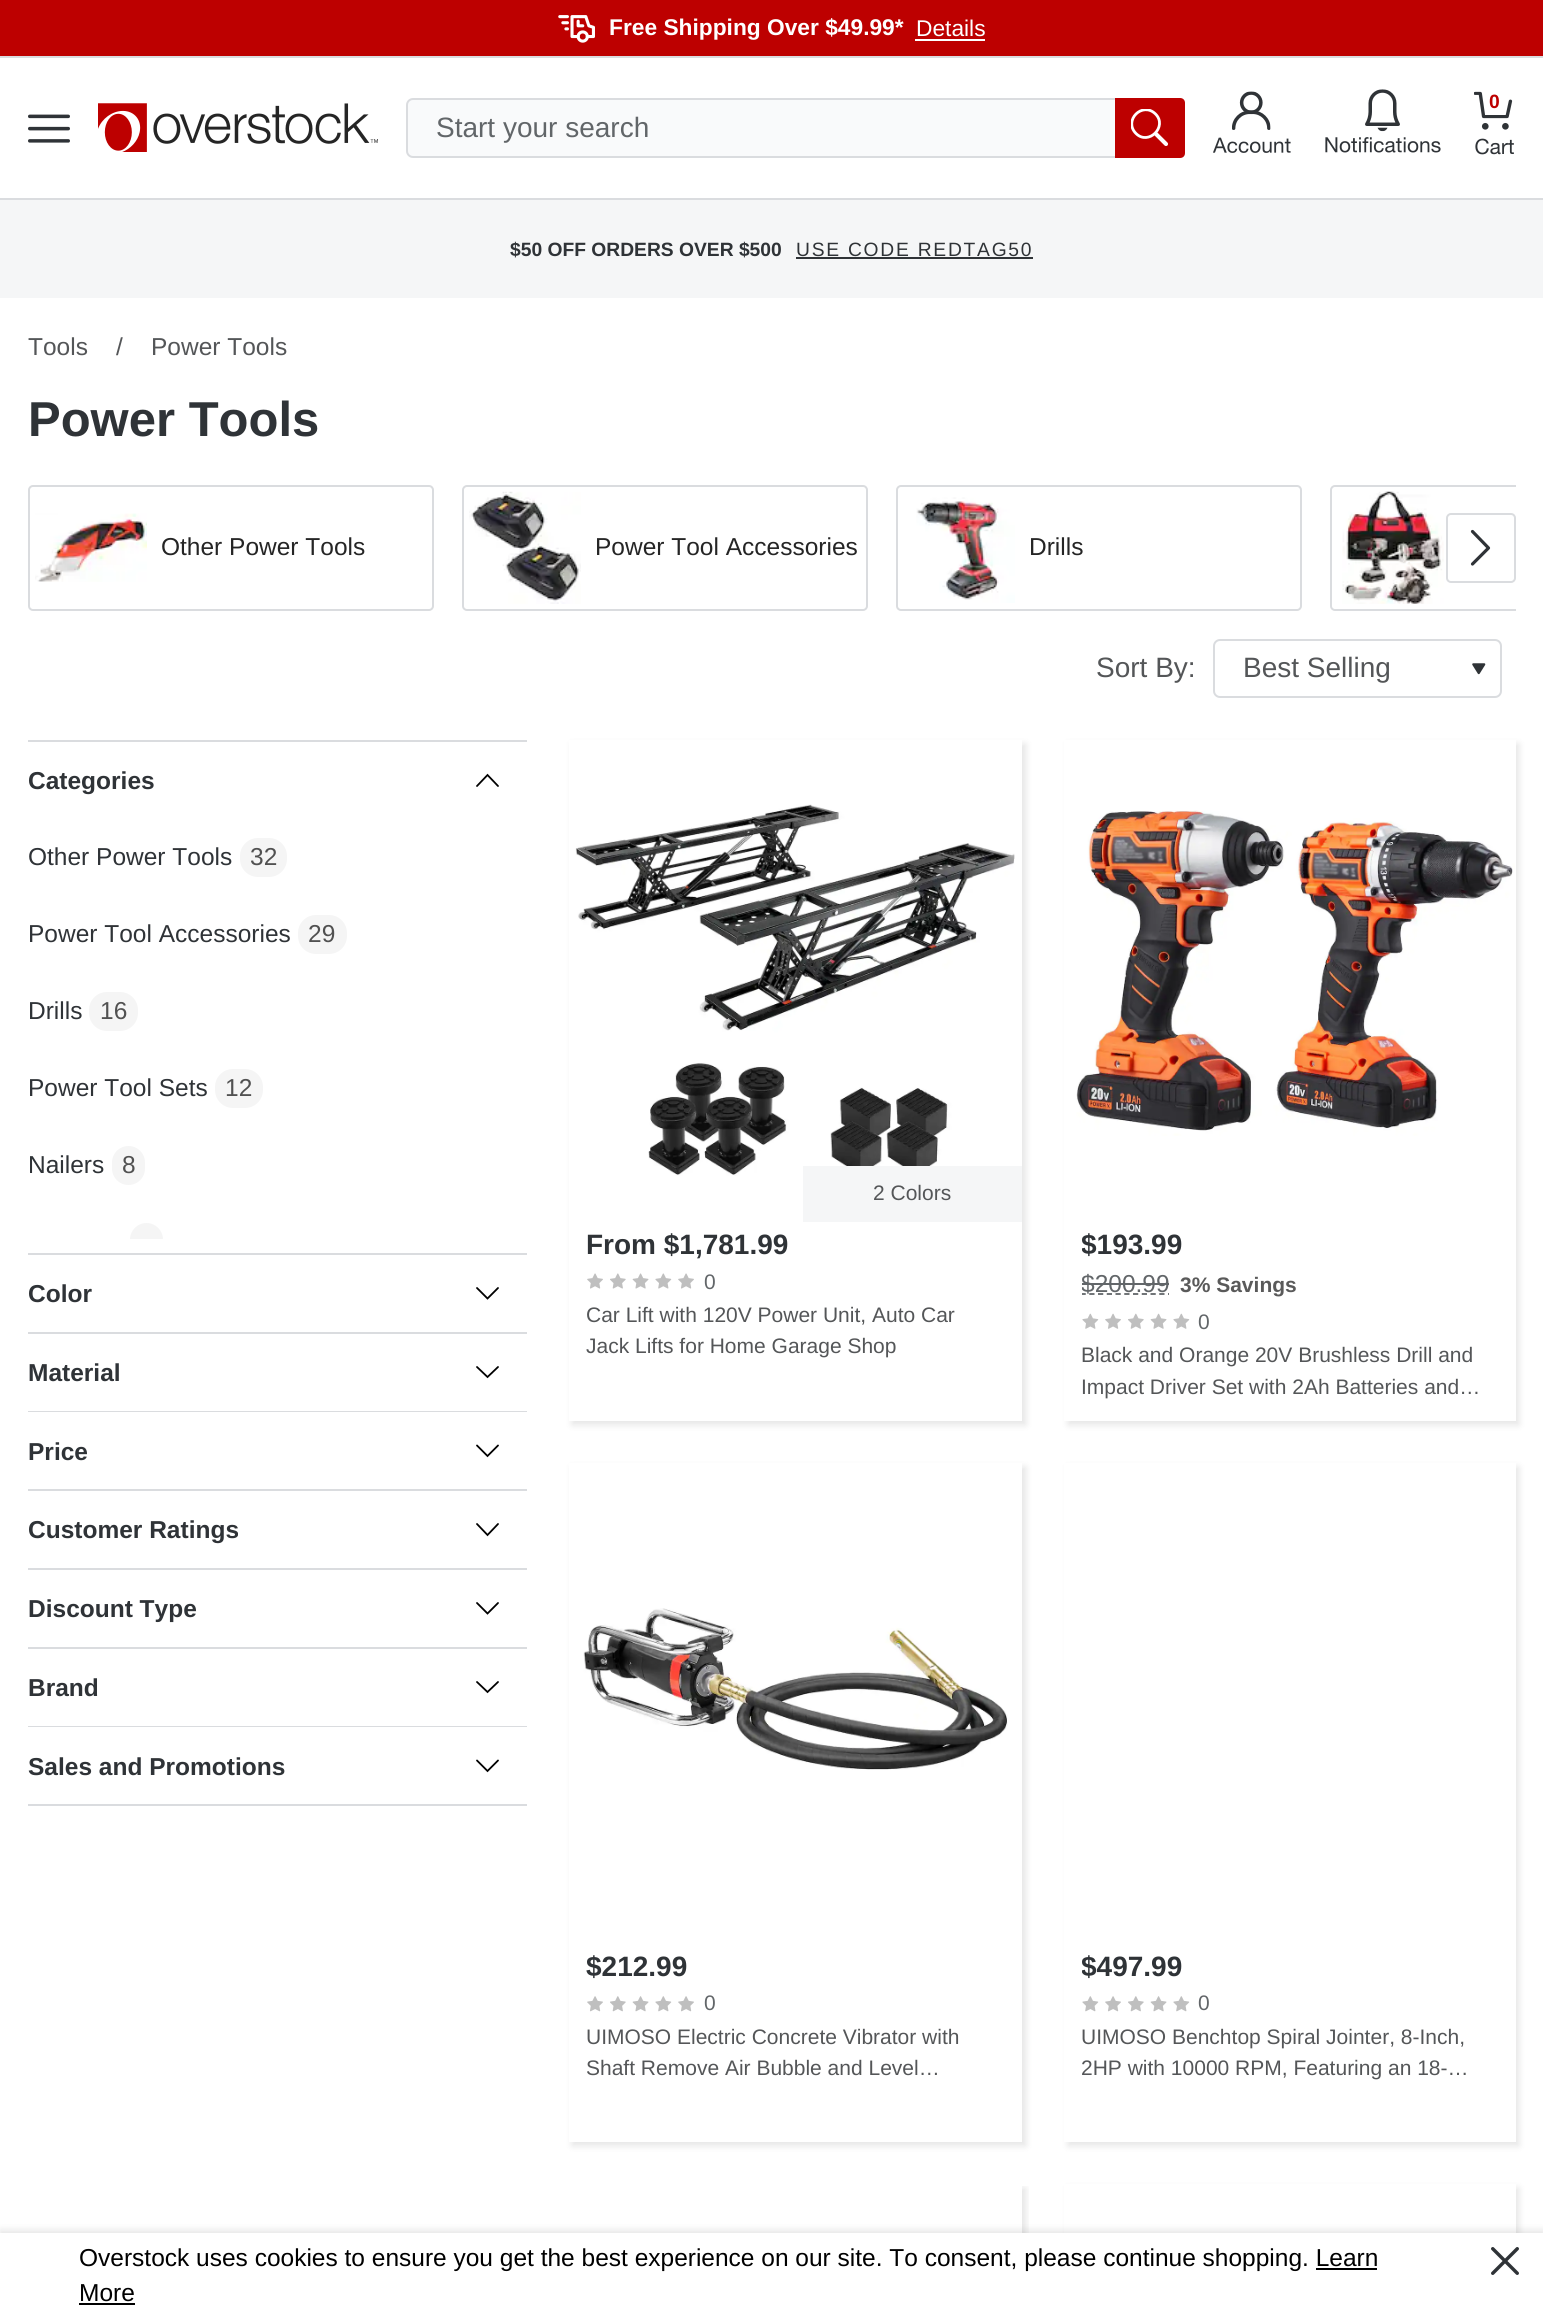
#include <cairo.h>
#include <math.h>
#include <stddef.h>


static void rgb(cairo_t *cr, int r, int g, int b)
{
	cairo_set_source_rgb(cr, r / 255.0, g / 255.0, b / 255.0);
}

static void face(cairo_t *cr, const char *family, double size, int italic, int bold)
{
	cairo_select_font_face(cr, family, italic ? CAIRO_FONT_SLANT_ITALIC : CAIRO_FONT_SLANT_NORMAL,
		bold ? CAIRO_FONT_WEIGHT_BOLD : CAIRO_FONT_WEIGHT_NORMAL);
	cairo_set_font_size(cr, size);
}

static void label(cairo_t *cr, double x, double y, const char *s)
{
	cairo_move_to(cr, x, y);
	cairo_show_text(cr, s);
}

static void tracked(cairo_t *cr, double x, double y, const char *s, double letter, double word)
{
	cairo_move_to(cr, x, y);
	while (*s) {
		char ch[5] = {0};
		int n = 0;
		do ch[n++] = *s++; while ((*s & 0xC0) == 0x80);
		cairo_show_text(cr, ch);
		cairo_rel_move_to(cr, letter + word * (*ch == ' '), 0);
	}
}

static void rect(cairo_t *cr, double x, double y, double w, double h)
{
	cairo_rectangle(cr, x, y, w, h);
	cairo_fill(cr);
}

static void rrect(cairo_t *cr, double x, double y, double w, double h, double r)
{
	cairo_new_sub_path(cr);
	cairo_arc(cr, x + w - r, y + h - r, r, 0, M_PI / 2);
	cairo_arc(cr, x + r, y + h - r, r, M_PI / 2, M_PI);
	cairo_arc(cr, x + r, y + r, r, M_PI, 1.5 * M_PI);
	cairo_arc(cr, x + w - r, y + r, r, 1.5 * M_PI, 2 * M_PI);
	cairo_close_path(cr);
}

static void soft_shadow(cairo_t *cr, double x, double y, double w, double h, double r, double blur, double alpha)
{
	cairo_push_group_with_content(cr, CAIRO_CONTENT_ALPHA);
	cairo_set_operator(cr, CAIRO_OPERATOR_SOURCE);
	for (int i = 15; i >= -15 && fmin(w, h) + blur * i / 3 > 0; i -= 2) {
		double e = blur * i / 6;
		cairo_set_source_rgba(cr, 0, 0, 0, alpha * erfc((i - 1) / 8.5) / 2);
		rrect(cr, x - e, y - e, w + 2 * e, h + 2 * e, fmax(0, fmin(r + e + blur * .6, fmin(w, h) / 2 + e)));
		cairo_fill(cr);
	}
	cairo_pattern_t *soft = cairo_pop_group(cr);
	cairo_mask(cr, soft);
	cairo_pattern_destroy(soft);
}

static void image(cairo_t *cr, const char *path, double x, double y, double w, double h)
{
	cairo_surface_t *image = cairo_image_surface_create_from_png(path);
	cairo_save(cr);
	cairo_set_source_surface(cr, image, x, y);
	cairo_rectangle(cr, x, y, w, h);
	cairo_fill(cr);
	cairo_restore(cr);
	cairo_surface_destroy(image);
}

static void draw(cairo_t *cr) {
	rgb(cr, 255, 255, 255);
	cairo_paint(cr);
	rgb(cr, 189, 0, 0);
	rect(cr, 0, 0, 1543, 56);
	image(cr, "image0.png", 558, 15, 37, 28);
	face(cr, "Liberation Sans", 22.75, 0, 1);
	rgb(cr, 255, 255, 255);
	label(cr, 609, 35, "Free Shipping Over $49.99*");
	face(cr, "Liberation Sans", 22.75, 0, 0);
	label(cr, 916, 36, "Details");
	rect(cr, 915, 39, 70, 2);
	rgb(cr, 218, 220, 223);
	rect(cr, 0, 56, 1543, 2);
	rect(cr, 0, 198, 1543, 2);
	image(cr, "image1.png", 1213, 91, 78, 62);
	image(cr, "image2.png", 1325, 89, 116, 64);
	image(cr, "image3.png", 1474, 91, 40, 64);
	face(cr, "Liberation Sans", 19.25, 0, 1);
	rgb(cr, 189, 0, 0);
	label(cr, 1489, 108, "0");
	image(cr, "image4.png", 28, 114, 42, 29);
	image(cr, "image5.png", 98, 103, 280, 49);
	rgb(cr, 249, 250, 251);
	rrect(cr, 407, 99, 777, 58, 6);
	cairo_fill_preserve(cr);
	rgb(cr, 218, 220, 223);
	cairo_stroke(cr);
	face(cr, "Liberation Sans", 28, 0, 0);
	rgb(cr, 98, 102, 105);
	label(cr, 436, 137, "Start your search");
	rgb(cr, 189, 0, 0);
	cairo_new_path(cr);
	cairo_move_to(cr, 1115, 98);
	cairo_line_to(cr, 1180, 98);
	cairo_curve_to(cr, 1183, 98, 1185, 100, 1185, 103);
	cairo_line_to(cr, 1185, 153);
	cairo_curve_to(cr, 1185, 156, 1183, 158, 1180, 158);
	cairo_line_to(cr, 1115, 158);
	cairo_close_path(cr);
	cairo_fill(cr);
	cairo_new_path(cr);
	cairo_move_to(cr, 1166, 144);
	cairo_line_to(cr, 1156.5, 134.5);
	rgb(cr, 255, 255, 255);
	cairo_set_line_width(cr, 4.1);
	cairo_set_line_cap(cr, CAIRO_LINE_CAP_ROUND);
	cairo_stroke(cr);
	cairo_save(cr);
	cairo_rectangle(cr, 1131, 109, 38, 38);
	cairo_clip(cr);
	cairo_new_path(cr);
	cairo_move_to(cr, 1155.5, 114);
	cairo_curve_to(cr, 1168, 126.5, 1148.5, 146, 1136, 133.5);
	cairo_curve_to(cr, 1123, 120.5, 1142.5, 101, 1155.5, 114);
	cairo_close_path(cr);
	cairo_set_line_width(cr, 2.8);
	cairo_set_line_cap(cr, CAIRO_LINE_CAP_BUTT);
	cairo_stroke(cr);
	cairo_restore(cr);
	rgb(cr, 245, 246, 247);
	rect(cr, 0, 200, 1543, 98);
	face(cr, "Liberation Sans", 19.25, 0, 1);
	rgb(cr, 47, 51, 55);
	label(cr, 510, 256, "$50 OFF ORDERS OVER $500");
	face(cr, "Liberation Sans", 19.25, 0, 0);
	tracked(cr, 796, 256, "USE CODE REDTAG50", 1.75, 0);
	rect(cr, 796, 257, 237, 2);
	face(cr, "Liberation Sans", 24.5, 0, 0);
	rgb(cr, 84, 86, 88);
	label(cr, 28, 355, "Tools");
	label(cr, 116, 355, "/");
	label(cr, 151, 355, "Power Tools");
	face(cr, "Liberation Sans", 49, 0, 1);
	rgb(cr, 47, 51, 55);
	label(cr, 28, 436, "Power Tools");
	rrect(cr, 29, 486, 404, 124, 4);
	rgb(cr, 218, 220, 223);
	cairo_set_line_width(cr, 2);
	cairo_set_line_cap(cr, CAIRO_LINE_CAP_BUTT);
	cairo_stroke(cr);
	image(cr, "image6.png", 35, 513, 112, 69);
	face(cr, "Liberation Sans", 24.5, 0, 0);
	rgb(cr, 37, 37, 37);
	label(cr, 161, 555, "Other Power Tools");
	rrect(cr, 463, 486, 404, 124, 4);
	rgb(cr, 218, 220, 223);
	cairo_stroke(cr);
	image(cr, "image7.png", 469, 491, 112, 113);
	rgb(cr, 37, 37, 37);
	label(cr, 595, 555, "Power Tool Accessories");
	rrect(cr, 897, 486, 404, 124, 4);
	rgb(cr, 218, 220, 223);
	cairo_stroke(cr);
	image(cr, "image8.png", 916, 497, 99, 106);
	rgb(cr, 37, 37, 37);
	label(cr, 1029, 555, "Drills");
	cairo_save(cr);
	cairo_rectangle(cr, 28, 485, 1488, 126);
	cairo_clip(cr);
	rrect(cr, 1331, 486, 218, 124, 4);
	rgb(cr, 218, 220, 223);
	cairo_stroke(cr);
	cairo_restore(cr);
	image(cr, "image9.png", 1342, 491, 102, 113);
	rrect(cr, 1447, 514, 68, 68, 4);
	rgb(cr, 218, 220, 223);
	cairo_stroke(cr);
	cairo_new_path(cr);
	cairo_move_to(cr, 1472.5, 564);
	cairo_line_to(cr, 1488.5, 548);
	cairo_line_to(cr, 1472.5, 531.5);
	rgb(cr, 47, 51, 55);
	cairo_set_line_width(cr, 3.2);
	cairo_set_line_cap(cr, CAIRO_LINE_CAP_ROUND);
	cairo_set_line_join(cr, CAIRO_LINE_JOIN_ROUND);
	cairo_stroke(cr);
	face(cr, "Liberation Sans", 28, 0, 0);
	rgb(cr, 84, 86, 88);
	label(cr, 1096, 677, "Sort By:");
	image(cr, "image10.png", 1472, 663, 14, 12);
	rrect(cr, 1214, 640, 287, 57, 6);
	rgb(cr, 218, 220, 223);
	cairo_set_line_width(cr, 2);
	cairo_set_line_cap(cr, CAIRO_LINE_CAP_BUTT);
	cairo_set_line_join(cr, CAIRO_LINE_JOIN_MITER);
	cairo_stroke(cr);
	rgb(cr, 84, 86, 88);
	label(cr, 1243, 677, "Best Selling");
	rgb(cr, 218, 220, 223);
	rect(cr, 28, 740, 499, 2);
	rect(cr, 28, 1804, 499, 2);
	face(cr, "Liberation Sans", 24.5, 0, 1);
	rgb(cr, 47, 51, 55);
	label(cr, 28, 789, "Categories");
	cairo_new_path(cr);
	cairo_move_to(cr, 477, 786);
	cairo_line_to(cr, 487.5, 775);
	cairo_line_to(cr, 498, 786);
	rgb(cr, 0, 0, 0);
	cairo_set_line_width(cr, 1.8);
	cairo_set_line_cap(cr, CAIRO_LINE_CAP_ROUND);
	cairo_stroke(cr);
	face(cr, "Liberation Sans", 24.5, 0, 0);
	rgb(cr, 47, 51, 55);
	label(cr, 28, 865, "Other Power Tools");
	rgb(cr, 245, 245, 245);
	rrect(cr, 240, 838, 47, 39, 18);
	cairo_fill(cr);
	rgb(cr, 81, 81, 81);
	label(cr, 250, 865, "32");
	rgb(cr, 47, 51, 55);
	label(cr, 28, 942, "Power Tool Accessories");
	rgb(cr, 245, 245, 245);
	rrect(cr, 298, 915, 49, 39, 18);
	cairo_fill(cr);
	rgb(cr, 81, 81, 81);
	label(cr, 308, 942, "29");
	rgb(cr, 47, 51, 55);
	label(cr, 28, 1019, "Drills");
	rgb(cr, 245, 245, 245);
	rrect(cr, 89, 992, 49, 39, 18);
	cairo_fill(cr);
	rgb(cr, 81, 81, 81);
	label(cr, 100, 1019, "16");
	rgb(cr, 47, 51, 55);
	label(cr, 28, 1096, "Power Tool Sets");
	rgb(cr, 245, 245, 245);
	rrect(cr, 215, 1069, 48, 39, 18);
	cairo_fill(cr);
	rgb(cr, 81, 81, 81);
	label(cr, 225, 1096, "12");
	rgb(cr, 47, 51, 55);
	label(cr, 28, 1173, "Nailers");
	rgb(cr, 245, 245, 245);
	rrect(cr, 112, 1146, 33, 39, 16.5);
	cairo_fill(cr);
	rgb(cr, 81, 81, 81);
	label(cr, 122, 1173, "8");
	rgb(cr, 245, 245, 245);
	cairo_new_path(cr);
	cairo_move_to(cr, 146.5, 1223);
	cairo_curve_to(cr, 155.5, 1223, 163, 1230.5, 163, 1239.5);
	cairo_line_to(cr, 163, 1239);
	cairo_line_to(cr, 130, 1239);
	cairo_line_to(cr, 130, 1239.5);
	cairo_curve_to(cr, 130, 1230.5, 137.5, 1223, 146.5, 1223);
	cairo_close_path(cr);
	cairo_fill(cr);
	rgb(cr, 218, 220, 223);
	rect(cr, 28, 1253, 499, 2);
	face(cr, "Liberation Sans", 24.5, 0, 1);
	rgb(cr, 47, 51, 55);
	label(cr, 28, 1302, "Color");
	cairo_new_path(cr);
	cairo_move_to(cr, 498, 1288);
	cairo_line_to(cr, 487.5, 1298.5);
	cairo_line_to(cr, 477, 1288);
	rgb(cr, 0, 0, 0);
	cairo_stroke(cr);
	rgb(cr, 218, 220, 223);
	rect(cr, 28, 1332, 499, 2);
	rgb(cr, 47, 51, 55);
	label(cr, 28, 1381, "Material");
	cairo_new_path(cr);
	cairo_move_to(cr, 498, 1367);
	cairo_line_to(cr, 487.5, 1377);
	cairo_line_to(cr, 477, 1367);
	rgb(cr, 0, 0, 0);
	cairo_stroke(cr);
	rgb(cr, 218, 220, 223);
	rect(cr, 28, 1411, 499, 1);
	rgb(cr, 47, 51, 55);
	label(cr, 28, 1460, "Price");
	cairo_new_path(cr);
	cairo_move_to(cr, 498, 1445.5);
	cairo_line_to(cr, 487.5, 1456);
	cairo_line_to(cr, 477, 1445.5);
	rgb(cr, 0, 0, 0);
	cairo_stroke(cr);
	rgb(cr, 218, 220, 223);
	rect(cr, 28, 1489, 499, 2);
	rgb(cr, 47, 51, 55);
	label(cr, 28, 1538, "Customer Ratings");
	cairo_new_path(cr);
	cairo_move_to(cr, 498, 1524);
	cairo_line_to(cr, 487.5, 1535);
	cairo_line_to(cr, 477, 1524);
	rgb(cr, 0, 0, 0);
	cairo_stroke(cr);
	rgb(cr, 218, 220, 223);
	rect(cr, 28, 1568, 499, 2);
	rgb(cr, 47, 51, 55);
	label(cr, 28, 1617, "Discount Type");
	cairo_new_path(cr);
	cairo_move_to(cr, 498, 1603);
	cairo_line_to(cr, 487.5, 1613.5);
	cairo_line_to(cr, 477, 1603);
	rgb(cr, 0, 0, 0);
	cairo_stroke(cr);
	rgb(cr, 218, 220, 223);
	rect(cr, 28, 1647, 499, 2);
	rgb(cr, 47, 51, 55);
	label(cr, 28, 1696, "Brand");
	cairo_new_path(cr);
	cairo_move_to(cr, 498, 1682);
	cairo_line_to(cr, 487.5, 1692);
	cairo_line_to(cr, 477, 1682);
	rgb(cr, 0, 0, 0);
	cairo_stroke(cr);
	rgb(cr, 218, 220, 223);
	rect(cr, 28, 1726, 499, 1);
	rgb(cr, 47, 51, 55);
	label(cr, 28, 1775, "Sales and Promotions");
	cairo_new_path(cr);
	cairo_move_to(cr, 498, 1760.5);
	cairo_line_to(cr, 487.5, 1771);
	cairo_line_to(cr, 477, 1760.5);
	rgb(cr, 0, 0, 0);
	cairo_stroke(cr);
	cairo_save(cr);
	cairo_set_fill_rule(cr, CAIRO_FILL_RULE_EVEN_ODD);
	cairo_new_path(cr);
	cairo_move_to(cr, 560, 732);
	cairo_line_to(cr, 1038, 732);
	cairo_line_to(cr, 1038, 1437);
	cairo_line_to(cr, 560, 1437);
	cairo_close_path(cr);
	cairo_move_to(cr, 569, 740);
	cairo_line_to(cr, 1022, 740);
	cairo_line_to(cr, 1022, 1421);
	cairo_line_to(cr, 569, 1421);
	cairo_close_path(cr);
	cairo_clip(cr);
	rgb(cr, 0, 0, 0);
	soft_shadow(cr, 572, 744, 454, 681, 0, 3.5, 0.1);
	cairo_restore(cr);
	image(cr, "image11.png", 575, 804, 440, 372);
	rgb(cr, 245, 246, 247);
	rect(cr, 803, 1166, 219, 56);
	face(cr, "Liberation Sans", 21, 0, 0);
	rgb(cr, 84, 86, 88);
	label(cr, 873, 1200, "2 Colors");
	face(cr, "Liberation Sans", 28, 0, 1);
	rgb(cr, 47, 51, 55);
	label(cr, 586, 1254, "From $1,781.99");
	image(cr, "image12.png", 587, 1273, 16, 16);
	image(cr, "image13.png", 610, 1273, 16, 16);
	image(cr, "image14.png", 632, 1273, 17, 16);
	image(cr, "image15.png", 655, 1273, 17, 16);
	image(cr, "image12.png", 678, 1273, 16, 16);
	face(cr, "Liberation Sans", 21, 0, 0);
	rgb(cr, 98, 102, 105);
	label(cr, 704, 1289, "0");
	rgb(cr, 84, 86, 88);
	label(cr, 586, 1322, "Car Lift with 120V Power Unit, Auto Car");
	label(cr, 586, 1353, "Jack Lifts for Home Garage Shop");
	cairo_save(cr);
	cairo_set_fill_rule(cr, CAIRO_FILL_RULE_EVEN_ODD);
	cairo_new_path(cr);
	cairo_move_to(cr, 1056, 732);
	cairo_line_to(cr, 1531, 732);
	cairo_line_to(cr, 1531, 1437);
	cairo_line_to(cr, 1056, 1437);
	cairo_close_path(cr);
	cairo_move_to(cr, 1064, 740);
	cairo_line_to(cr, 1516, 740);
	cairo_line_to(cr, 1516, 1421);
	cairo_line_to(cr, 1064, 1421);
	cairo_close_path(cr);
	cairo_clip(cr);
	rgb(cr, 0, 0, 0);
	soft_shadow(cr, 1068, 744, 451, 681, 0, 3.5, 0.1);
	cairo_restore(cr);
	image(cr, "image16.png", 1076, 810, 439, 326);
	cairo_save(cr);
	cairo_rectangle(cr, 1082, 1211, 416, 191);
	cairo_clip(cr);
	face(cr, "Liberation Sans", 28, 0, 1);
	rgb(cr, 47, 51, 55);
	label(cr, 1081, 1254, "$193.99");
	cairo_new_path(cr);
	cairo_move_to(cr, 1080.5, 1294);
	cairo_line_to(cr, 1169, 1294);
	rgb(cr, 98, 102, 105);
	cairo_set_line_cap(cr, CAIRO_LINE_CAP_BUTT);
	cairo_set_dash(cr, (double[]){5.25, 3.5}, 2, 0);
	cairo_stroke(cr);
	face(cr, "Liberation Sans", 24.5, 0, 0);
	label(cr, 1081, 1292, "$200.99");
	cairo_restore(cr);
	rgb(cr, 98, 102, 105);
	rect(cr, 1082, 1283, 87, 2);
	face(cr, "Liberation Sans", 21, 0, 1);
	rgb(cr, 90, 90, 90);
	label(cr, 1180, 1292, "3% Savings");
	image(cr, "image17.png", 1082, 1313, 17, 16);
	image(cr, "image18.png", 1105, 1313, 16, 16);
	image(cr, "image19.png", 1128, 1313, 16, 16);
	image(cr, "image20.png", 1150, 1313, 17, 16);
	image(cr, "image17.png", 1173, 1313, 17, 16);
	face(cr, "Liberation Sans", 21, 0, 0);
	rgb(cr, 98, 102, 105);
	label(cr, 1198, 1329, "0");
	rgb(cr, 84, 86, 88);
	label(cr, 1081, 1362, "Black and Orange 20V Brushless Drill and");
	label(cr, 1081, 1394, "Impact Driver Set with 2Ah Batteries and…");
	cairo_save(cr);
	cairo_set_fill_rule(cr, CAIRO_FILL_RULE_EVEN_ODD);
	cairo_new_path(cr);
	cairo_move_to(cr, 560, 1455);
	cairo_line_to(cr, 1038, 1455);
	cairo_line_to(cr, 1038, 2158);
	cairo_line_to(cr, 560, 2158);
	cairo_close_path(cr);
	cairo_move_to(cr, 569, 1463);
	cairo_line_to(cr, 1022, 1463);
	cairo_line_to(cr, 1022, 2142);
	cairo_line_to(cr, 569, 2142);
	cairo_close_path(cr);
	cairo_clip(cr);
	rgb(cr, 0, 0, 0);
	soft_shadow(cr, 572, 1467, 454, 679, 0, 3.5, 0.1);
	cairo_restore(cr);
	image(cr, "image21.png", 583, 1608, 425, 162);
	face(cr, "Liberation Sans", 28, 0, 1);
	rgb(cr, 47, 51, 55);
	label(cr, 586, 1976, "$212.99");
	image(cr, "image22.png", 587, 1996, 16, 16);
	image(cr, "image23.png", 610, 1996, 16, 16);
	image(cr, "image24.png", 632, 1996, 17, 16);
	image(cr, "image25.png", 655, 1996, 17, 16);
	image(cr, "image22.png", 678, 1996, 16, 16);
	face(cr, "Liberation Sans", 21, 0, 0);
	rgb(cr, 98, 102, 105);
	label(cr, 704, 2010, "0");
	rgb(cr, 84, 86, 88);
	label(cr, 586, 2044, "UIMOSO Electric Concrete Vibrator with");
	label(cr, 586, 2075, "Shaft Remove Air Bubble and Level…");
	cairo_save(cr);
	cairo_set_fill_rule(cr, CAIRO_FILL_RULE_EVEN_ODD);
	cairo_new_path(cr);
	cairo_move_to(cr, 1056, 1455);
	cairo_line_to(cr, 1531, 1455);
	cairo_line_to(cr, 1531, 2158);
	cairo_line_to(cr, 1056, 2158);
	cairo_close_path(cr);
	cairo_move_to(cr, 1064, 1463);
	cairo_line_to(cr, 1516, 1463);
	cairo_line_to(cr, 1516, 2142);
	cairo_line_to(cr, 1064, 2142);
	cairo_close_path(cr);
	cairo_clip(cr);
	rgb(cr, 0, 0, 0);
	soft_shadow(cr, 1068, 1467, 451, 679, 0, 3.5, 0.1);
	cairo_restore(cr);
	cairo_save(cr);
	cairo_rectangle(cr, 1082, 1932, 416, 152);
	cairo_clip(cr);
	face(cr, "Liberation Sans", 28, 0, 1);
	rgb(cr, 47, 51, 55);
	label(cr, 1081, 1976, "$497.99");
	cairo_restore(cr);
	image(cr, "image25.png", 1082, 1996, 17, 16);
	image(cr, "image22.png", 1105, 1996, 16, 16);
	image(cr, "image23.png", 1128, 1996, 16, 16);
	image(cr, "image24.png", 1150, 1996, 17, 16);
	image(cr, "image25.png", 1173, 1996, 17, 16);
	rgb(cr, 98, 102, 105);
	label(cr, 1198, 2010, "0");
	rgb(cr, 84, 86, 88);
	label(cr, 1081, 2044, "UIMOSO Benchtop Spiral Jointer, 8-Inch,");
	cairo_save(cr);
	cairo_rectangle(cr, 1082, 2021, 416, 63);
	cairo_clip(cr);
	label(cr, 1081, 2075, "2HP with 10000 RPM, Featuring an 18-…");
	cairo_restore(cr);
	cairo_save(cr);
	cairo_rectangle(cr, 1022, 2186, 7, 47);
	cairo_clip(cr);
	rgb(cr, 0, 0, 0);
	soft_shadow(cr, 572, 2188, 454, 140, 0, 3.5, 0.1);
	cairo_restore(cr);
	cairo_save(cr);
	cairo_set_fill_rule(cr, CAIRO_FILL_RULE_EVEN_ODD);
	cairo_new_path(cr);
	cairo_move_to(cr, 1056, 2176);
	cairo_line_to(cr, 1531, 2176);
	cairo_line_to(cr, 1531, 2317);
	cairo_line_to(cr, 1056, 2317);
	cairo_close_path(cr);
	cairo_move_to(cr, 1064, 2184);
	cairo_line_to(cr, 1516, 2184);
	cairo_line_to(cr, 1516, 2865);
	cairo_line_to(cr, 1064, 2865);
	cairo_close_path(cr);
	cairo_clip(cr);
	rgb(cr, 0, 0, 0);
	soft_shadow(cr, 1068, 2188, 451, 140, 0, 3.5, 0.1);
	cairo_restore(cr);
	rgb(cr, 0, 0, 0);
	soft_shadow(cr, 0, 2230, 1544, 84, 0, 3.5, 0.1);
	rgb(cr, 255, 255, 255);
	rect(cr, 0, 2233, 1543, 84);
	face(cr, "Liberation Sans", 24.5, 0, 0);
	rgb(cr, 0, 0, 0);
	label(cr, 79, 2266, "Overstock uses cookies to ensure you get the best experience on our site. To consent, please continue shopping. Learn");
	label(cr, 79, 2301, "More");
	rect(cr, 1316, 2268, 61, 2);
	rect(cr, 79, 2303, 56, 2);
	image(cr, "image26.png", 1491, 2247, 28, 28);
}

int main(void) {
	cairo_surface_t *surface = cairo_image_surface_create(CAIRO_FORMAT_RGB24, 1543, 2317);
	cairo_t *cr = cairo_create(surface);
	cairo_font_options_t *options = cairo_font_options_create();
	cairo_font_options_set_hint_metrics(options, CAIRO_HINT_METRICS_OFF);
	cairo_font_options_set_hint_style(options, CAIRO_HINT_STYLE_NONE);
	cairo_set_font_options(cr, options);
	cairo_set_miter_limit(cr, 4);
	draw(cr);
	cairo_surface_write_to_png(surface, "render.png");
	cairo_font_options_destroy(options);
	cairo_destroy(cr);
	cairo_surface_destroy(surface);
	return 0;
}
